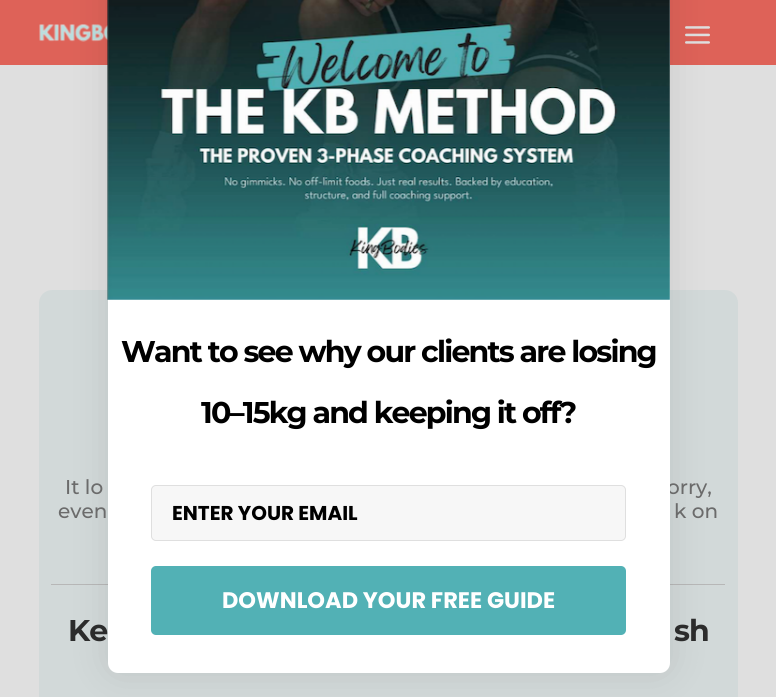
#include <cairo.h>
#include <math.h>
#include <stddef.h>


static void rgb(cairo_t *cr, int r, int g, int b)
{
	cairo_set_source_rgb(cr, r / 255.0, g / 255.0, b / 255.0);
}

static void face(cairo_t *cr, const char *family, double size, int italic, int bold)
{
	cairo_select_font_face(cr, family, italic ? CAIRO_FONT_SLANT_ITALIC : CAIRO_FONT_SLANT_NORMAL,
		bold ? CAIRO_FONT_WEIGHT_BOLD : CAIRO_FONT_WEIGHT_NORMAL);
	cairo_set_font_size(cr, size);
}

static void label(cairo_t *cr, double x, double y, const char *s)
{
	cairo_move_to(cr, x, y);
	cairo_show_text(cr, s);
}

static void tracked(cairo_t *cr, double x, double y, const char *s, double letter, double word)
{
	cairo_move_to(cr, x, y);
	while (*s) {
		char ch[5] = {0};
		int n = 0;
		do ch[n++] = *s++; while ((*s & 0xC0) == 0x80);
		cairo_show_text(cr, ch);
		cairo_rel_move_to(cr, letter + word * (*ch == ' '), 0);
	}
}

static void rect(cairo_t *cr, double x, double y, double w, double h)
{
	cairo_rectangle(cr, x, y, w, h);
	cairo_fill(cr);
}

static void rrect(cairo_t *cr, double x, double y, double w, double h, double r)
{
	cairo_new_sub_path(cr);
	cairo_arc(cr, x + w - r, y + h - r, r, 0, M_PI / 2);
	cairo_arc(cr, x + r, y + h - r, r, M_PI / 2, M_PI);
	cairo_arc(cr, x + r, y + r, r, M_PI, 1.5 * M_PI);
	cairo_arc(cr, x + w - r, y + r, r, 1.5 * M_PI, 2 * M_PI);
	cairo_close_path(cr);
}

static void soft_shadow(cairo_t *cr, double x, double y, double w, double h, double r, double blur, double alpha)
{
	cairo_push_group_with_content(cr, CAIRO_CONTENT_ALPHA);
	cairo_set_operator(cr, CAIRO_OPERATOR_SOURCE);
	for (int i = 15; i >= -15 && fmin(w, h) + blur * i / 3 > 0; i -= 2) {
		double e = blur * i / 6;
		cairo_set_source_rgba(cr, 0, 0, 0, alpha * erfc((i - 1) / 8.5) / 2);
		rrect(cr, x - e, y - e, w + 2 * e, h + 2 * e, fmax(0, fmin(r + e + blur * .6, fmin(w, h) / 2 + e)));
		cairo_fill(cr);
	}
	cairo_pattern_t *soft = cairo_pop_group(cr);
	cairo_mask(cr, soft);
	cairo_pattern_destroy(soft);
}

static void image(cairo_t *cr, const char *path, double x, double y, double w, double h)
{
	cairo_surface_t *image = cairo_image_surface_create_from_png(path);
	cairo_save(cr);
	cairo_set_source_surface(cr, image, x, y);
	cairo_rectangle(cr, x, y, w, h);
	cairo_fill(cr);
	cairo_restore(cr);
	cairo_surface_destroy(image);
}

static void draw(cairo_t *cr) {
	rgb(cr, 223, 223, 223);
	cairo_paint(cr);
	rgb(cr, 222, 98, 88);
	rect(cr, 0, 0, 776, 65);
	image(cr, "image1.png", 39, 24, 69, 18);
	image(cr, "image2.png", 685, 26, 25, 18);
	rgb(cr, 210, 217, 217);
	rrect(cr, 39, 290, 699, 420, 13);
	cairo_fill(cr);
	rgb(cr, 183, 183, 183);
	rect(cr, 51, 584, 674, 1);
	rgb(cr, 0, 0, 0);
	soft_shadow(cr, 108, -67, 562, 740, 10, 19, 0.1);
	face(cr, "Montserrat Medium", 20, 0, 0);
	rgb(cr, 107, 107, 107);
	label(cr, 667, 494, "orry,");
	rgb(cr, 255, 255, 255);
	cairo_new_path(cr);
	cairo_move_to(cr, 108, 0);
	cairo_line_to(cr, 670, 0);
	cairo_line_to(cr, 670, 663);
	cairo_curve_to(cr, 670, 668.5, 665.5, 673, 660, 673);
	cairo_line_to(cr, 118, 673);
	cairo_curve_to(cr, 112.5, 673, 108, 668.5, 108, 663);
	cairo_close_path(cr);
	cairo_fill(cr);
	image(cr, "image0.png", 107, 0, 563, 300);
	face(cr, "Montserrat", 30, 0, 1);
	rgb(cr, 0, 0, 0);
	tracked(cr, 121, 362, "Want to see why our clients are losing", -1.8, 0);
	tracked(cr, 201, 423, "10–15kg and keeping it off?", -1.8, 0);
	rgb(cr, 247, 247, 247);
	rrect(cr, 151, 485, 475, 56, 5);
	cairo_fill(cr);
	rrect(cr, 151.5, 485.5, 474, 55, 4.5);
	cairo_set_source_rgba(cr, 0, 0, 0, 0.1);
	cairo_set_line_width(cr, 1);
	cairo_stroke(cr);
	face(cr, "Poppins", 20, 0, 1);
	rgb(cr, 0, 0, 0);
	label(cr, 172, 520, "ENTER YOUR EMAIL");
	rgb(cr, 82, 177, 181);
	rrect(cr, 151, 566, 475, 69, 5);
	cairo_fill(cr);
	face(cr, "Poppins", 22.5, 0, 1);
	rgb(cr, 255, 255, 255);
	label(cr, 222, 608, "DOWNLOAD YOUR FREE GUIDE");
	face(cr, "Montserrat Medium", 20, 0, 0);
	rgb(cr, 107, 107, 107);
	label(cr, 65, 494, "It lo");
	label(cr, 58, 518, "even");
	label(cr, 674, 518, "k on");
	face(cr, "Montserrat", 30, 0, 1);
	rgb(cr, 44, 44, 44);
	tracked(cr, 68, 641, "Ke", -1, 0);
	tracked(cr, 674, 641, "sh", -1, 0);
}

int main(void) {
	cairo_surface_t *surface = cairo_image_surface_create(CAIRO_FORMAT_RGB24, 776, 697);
	cairo_t *cr = cairo_create(surface);
	cairo_font_options_t *options = cairo_font_options_create();
	cairo_font_options_set_hint_metrics(options, CAIRO_HINT_METRICS_OFF);
	cairo_font_options_set_hint_style(options, CAIRO_HINT_STYLE_NONE);
	cairo_set_font_options(cr, options);
	cairo_set_miter_limit(cr, 4);
	draw(cr);
	cairo_surface_write_to_png(surface, "render.png");
	cairo_font_options_destroy(options);
	cairo_destroy(cr);
	cairo_surface_destroy(surface);
	return 0;
}
